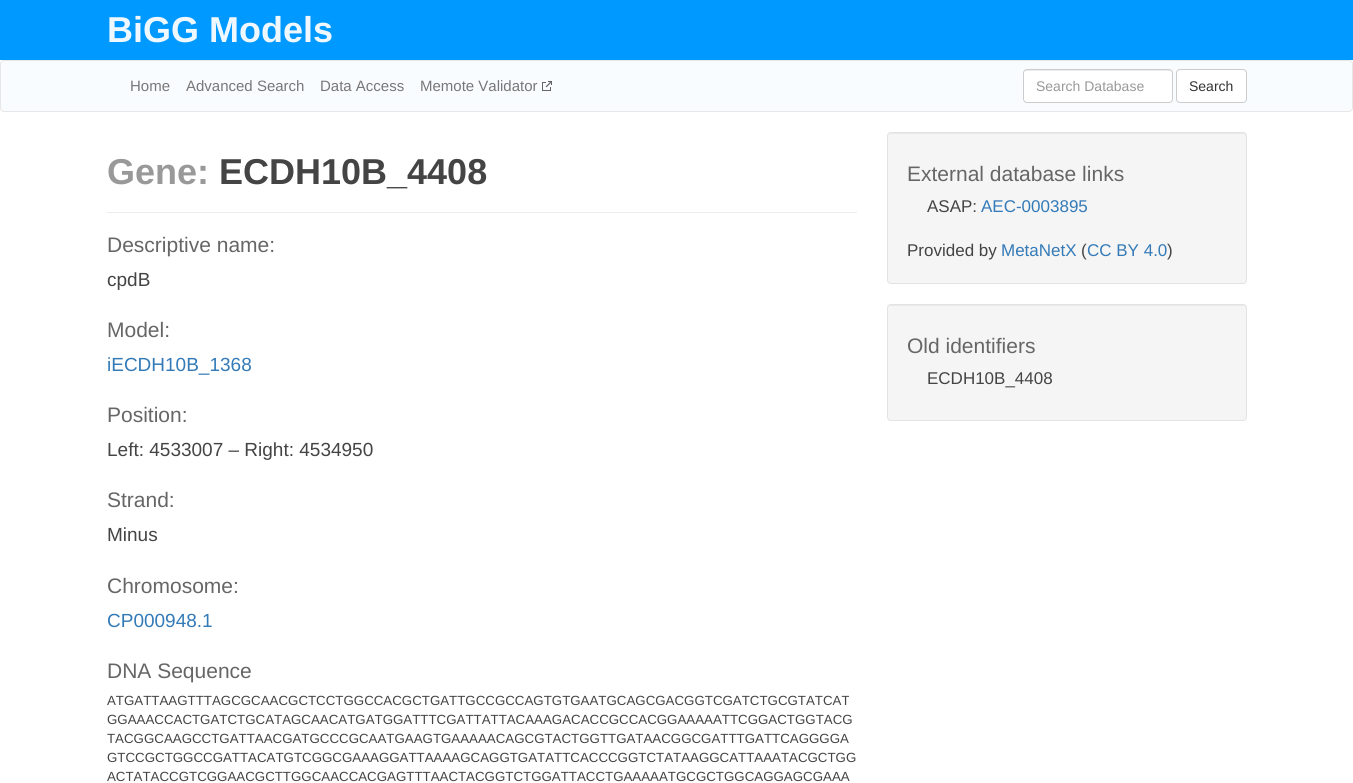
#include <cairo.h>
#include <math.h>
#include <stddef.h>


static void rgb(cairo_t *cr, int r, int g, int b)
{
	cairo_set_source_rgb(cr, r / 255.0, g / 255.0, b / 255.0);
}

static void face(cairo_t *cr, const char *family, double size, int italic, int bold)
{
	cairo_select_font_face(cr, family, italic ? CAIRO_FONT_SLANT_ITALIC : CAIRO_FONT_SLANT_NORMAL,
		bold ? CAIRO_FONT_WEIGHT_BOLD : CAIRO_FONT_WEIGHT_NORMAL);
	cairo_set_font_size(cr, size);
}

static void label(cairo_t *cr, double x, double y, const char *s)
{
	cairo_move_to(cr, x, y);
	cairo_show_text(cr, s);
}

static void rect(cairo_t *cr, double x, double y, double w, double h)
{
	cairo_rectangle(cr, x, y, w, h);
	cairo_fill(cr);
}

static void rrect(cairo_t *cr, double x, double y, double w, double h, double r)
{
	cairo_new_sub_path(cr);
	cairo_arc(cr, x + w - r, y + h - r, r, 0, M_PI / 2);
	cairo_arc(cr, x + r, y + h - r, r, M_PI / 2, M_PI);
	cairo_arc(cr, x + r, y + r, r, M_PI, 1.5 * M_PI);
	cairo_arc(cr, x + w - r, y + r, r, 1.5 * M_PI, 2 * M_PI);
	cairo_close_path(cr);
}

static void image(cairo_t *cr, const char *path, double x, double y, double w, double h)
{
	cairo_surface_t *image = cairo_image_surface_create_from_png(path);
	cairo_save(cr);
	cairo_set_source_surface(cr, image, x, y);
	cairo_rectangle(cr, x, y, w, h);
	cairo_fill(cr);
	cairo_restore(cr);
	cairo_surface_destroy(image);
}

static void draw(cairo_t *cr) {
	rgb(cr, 255, 255, 255);
	cairo_paint(cr);
	rgb(cr, 0, 153, 255);
	rect(cr, 0, 0, 1353, 60);
	face(cr, "Liberation Sans", 36, 0, 1);
	rgb(cr, 239, 248, 255);
	label(cr, 107, 42, "BiGG Models");
	rgb(cr, 249, 252, 255);
	rrect(cr, 0.5, 60.5, 1352, 51, 3.5);
	cairo_fill_preserve(cr);
	rgb(cr, 231, 231, 231);
	cairo_set_line_width(cr, 1);
	cairo_stroke(cr);
	face(cr, "Liberation Sans", 15, 0, 0);
	rgb(cr, 119, 119, 119);
	label(cr, 130, 91, "Home");
	label(cr, 186, 91, "Advanced Search");
	label(cr, 320, 91, "Data Access");
	label(cr, 420, 91, "Memote Validator");
	image(cr, "image0.png", 542, 81, 10, 10);
	rgb(cr, 255, 255, 255);
	rrect(cr, 1023, 69, 150, 34, 4);
	cairo_fill(cr);
	rgb(cr, 236, 236, 236);
	cairo_new_path(cr);
	cairo_move_to(cr, 1027, 71);
	cairo_line_to(cr, 1169, 71);
	cairo_curve_to(cr, 1171, 71, 1172, 72, 1172, 74);
	cairo_curve_to(cr, 1172, 72, 1172, 71, 1170, 70);
	cairo_line_to(cr, 1051, 70);
	cairo_curve_to(cr, 1043, 70, 1024, 65, 1024, 74);
	cairo_curve_to(cr, 1024, 72, 1025, 71, 1027, 71);
	cairo_close_path(cr);
	cairo_fill(cr);
	rrect(cr, 1023.5, 69.5, 149, 33, 3.5);
	rgb(cr, 204, 204, 204);
	cairo_stroke(cr);
	face(cr, "Liberation Sans", 14, 0, 0);
	rgb(cr, 153, 153, 153);
	label(cr, 1036, 91, "Search Database");
	rgb(cr, 255, 255, 255);
	rrect(cr, 1176.5, 69.5, 70, 33, 3.5);
	cairo_fill_preserve(cr);
	rgb(cr, 204, 204, 204);
	cairo_stroke(cr);
	rgb(cr, 51, 51, 51);
	label(cr, 1189, 91, "Search");
	face(cr, "Liberation Sans", 36, 0, 1);
	rgb(cr, 153, 153, 153);
	label(cr, 107, 184, "Gene:");
	rgb(cr, 68, 68, 68);
	label(cr, 219, 184, "ECDH10B_4408");
	rgb(cr, 238, 238, 238);
	rect(cr, 107, 212, 750, 1);
	face(cr, "Liberation Sans", 21, 0, 0);
	rgb(cr, 102, 102, 102);
	label(cr, 107, 252, "Descriptive name:");
	face(cr, "Liberation Sans", 19, 0, 0);
	rgb(cr, 68, 68, 68);
	label(cr, 107, 286, "cpdB");
	face(cr, "Liberation Sans", 21, 0, 0);
	rgb(cr, 102, 102, 102);
	label(cr, 107, 337, "Model:");
	face(cr, "Liberation Sans", 19, 0, 0);
	rgb(cr, 51, 122, 183);
	label(cr, 107, 371, "iECDH10B_1368");
	face(cr, "Liberation Sans", 21, 0, 0);
	rgb(cr, 102, 102, 102);
	label(cr, 107, 422, "Position:");
	face(cr, "Liberation Sans", 19, 0, 0);
	rgb(cr, 68, 68, 68);
	label(cr, 107, 456, "Left: 4533007 – Right: 4534950");
	face(cr, "Liberation Sans", 21, 0, 0);
	rgb(cr, 102, 102, 102);
	label(cr, 107, 507, "Strand:");
	face(cr, "Liberation Sans", 19, 0, 0);
	rgb(cr, 68, 68, 68);
	label(cr, 107, 541, "Minus");
	face(cr, "Liberation Sans", 21, 0, 0);
	rgb(cr, 102, 102, 102);
	label(cr, 107, 593, "Chromosome:");
	face(cr, "Liberation Sans", 19, 0, 0);
	rgb(cr, 51, 122, 183);
	label(cr, 107, 627, "CP000948.1");
	face(cr, "Liberation Sans", 21, 0, 0);
	rgb(cr, 102, 102, 102);
	label(cr, 107, 678, "DNA Sequence");
	face(cr, "Liberation Sans", 13.3, 0, 0);
	rgb(cr, 68, 68, 68);
	label(cr, 107, 705, "ATGATTAAGTTTAGCGCAACGCTCCTGGCCACGCTGATTGCCGCCAGTGTGAATGCAGCGACGGTCGATCTGCGTATCAT");
	label(cr, 107, 724, "GGAAACCACTGATCTGCATAGCAACATGATGGATTTCGATTATTACAAAGACACCGCCACGGAAAAATTCGGACTGGTACG");
	label(cr, 107, 743, "TACGGCAAGCCTGATTAACGATGCCCGCAATGAAGTGAAAAACAGCGTACTGGTTGATAACGGCGATTTGATTCAGGGGA");
	label(cr, 107, 762, "GTCCGCTGGCCGATTACATGTCGGCGAAAGGATTAAAAGCAGGTGATATTCACCCGGTCTATAAGGCATTAAATACGCTGG");
	label(cr, 107, 781, "ACTATACCGTCGGAACGCTTGGCAACCACGAGTTTAACTACGGTCTGGATTACCTGAAAAATGCGCTGGCAGGAGCGAAA");
	rgb(cr, 245, 245, 245);
	rrect(cr, 887, 132, 360, 152, 4);
	cairo_fill(cr);
	rgb(cr, 233, 233, 233);
	cairo_new_path(cr);
	cairo_move_to(cr, 891, 134);
	cairo_line_to(cr, 1243, 134);
	cairo_curve_to(cr, 1245, 134, 1246, 135, 1246, 137);
	cairo_curve_to(cr, 1246, 135, 1245, 133, 1243, 133);
	cairo_line_to(cr, 891, 133);
	cairo_line_to(cr, 889, 134);
	cairo_line_to(cr, 888, 137);
	cairo_curve_to(cr, 888, 135, 889, 134, 891, 134);
	cairo_close_path(cr);
	cairo_fill(cr);
	rrect(cr, 887.5, 132.5, 359, 151, 3.5);
	rgb(cr, 227, 227, 227);
	cairo_stroke(cr);
	face(cr, "Liberation Sans", 21, 0, 0);
	rgb(cr, 102, 102, 102);
	label(cr, 907, 181, "External database links");
	face(cr, "Liberation Sans", 17, 0, 0);
	rgb(cr, 68, 68, 68);
	label(cr, 927, 212, "ASAP:");
	rgb(cr, 51, 122, 183);
	label(cr, 981, 212, "AEC-0003895");
	rgb(cr, 68, 68, 68);
	label(cr, 907, 256, "Provided by");
	rgb(cr, 51, 122, 183);
	label(cr, 1001, 256, "MetaNetX");
	rgb(cr, 68, 68, 68);
	label(cr, 1081, 256, "(");
	rgb(cr, 51, 122, 183);
	label(cr, 1087, 256, "CC BY 4.0");
	rgb(cr, 68, 68, 68);
	label(cr, 1167, 256, ")");
	rgb(cr, 245, 245, 245);
	rrect(cr, 887, 304, 360, 117, 4);
	cairo_fill(cr);
	rgb(cr, 233, 233, 233);
	cairo_new_path(cr);
	cairo_move_to(cr, 891, 306);
	cairo_line_to(cr, 1243, 306);
	cairo_curve_to(cr, 1245, 306, 1246, 307, 1246, 309);
	cairo_curve_to(cr, 1246, 307, 1245, 305, 1243, 305);
	cairo_line_to(cr, 891, 305);
	cairo_line_to(cr, 889, 306);
	cairo_line_to(cr, 888, 309);
	cairo_curve_to(cr, 888, 307, 889, 306, 891, 306);
	cairo_close_path(cr);
	cairo_fill(cr);
	rrect(cr, 887.5, 304.5, 359, 116, 3.5);
	rgb(cr, 227, 227, 227);
	cairo_stroke(cr);
	face(cr, "Liberation Sans", 21, 0, 0);
	rgb(cr, 102, 102, 102);
	label(cr, 907, 353, "Old identifiers");
	face(cr, "Liberation Sans", 17, 0, 0);
	rgb(cr, 68, 68, 68);
	label(cr, 927, 384, "ECDH10B_4408");
}

int main(void) {
	cairo_surface_t *surface = cairo_image_surface_create(CAIRO_FORMAT_RGB24, 1353, 783);
	cairo_t *cr = cairo_create(surface);
	cairo_font_options_t *options = cairo_font_options_create();
	cairo_font_options_set_hint_metrics(options, CAIRO_HINT_METRICS_OFF);
	cairo_font_options_set_hint_style(options, CAIRO_HINT_STYLE_NONE);
	cairo_set_font_options(cr, options);
	cairo_set_miter_limit(cr, 4);
	draw(cr);
	cairo_surface_write_to_png(surface, "render.png");
	cairo_font_options_destroy(options);
	cairo_destroy(cr);
	cairo_surface_destroy(surface);
	return 0;
}
